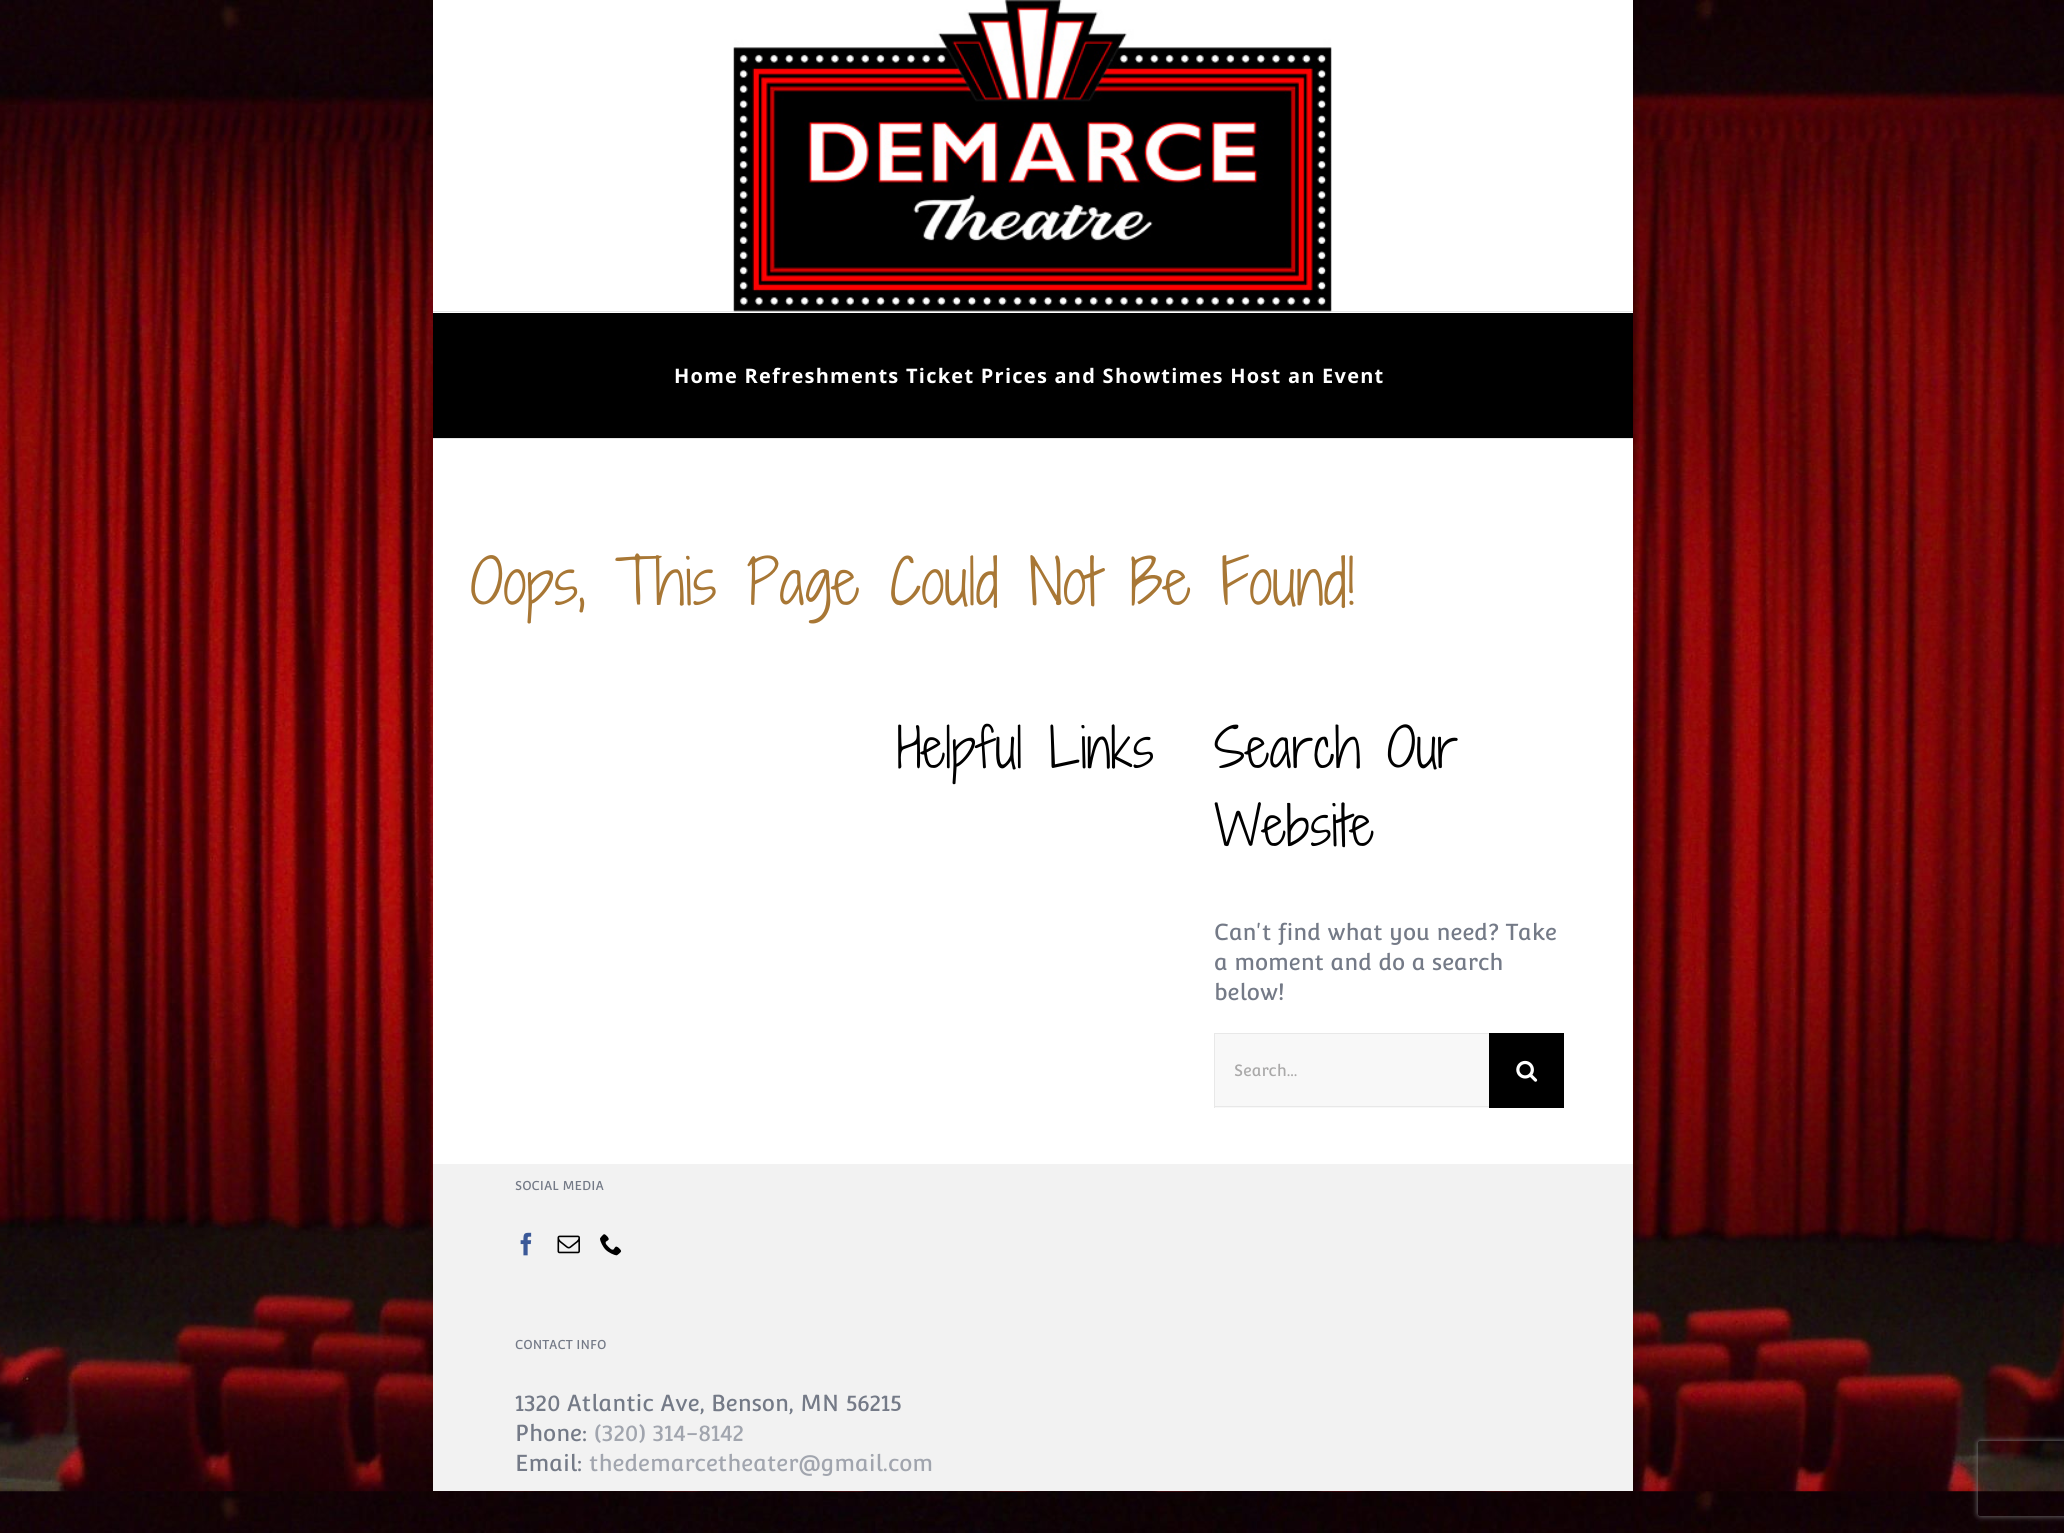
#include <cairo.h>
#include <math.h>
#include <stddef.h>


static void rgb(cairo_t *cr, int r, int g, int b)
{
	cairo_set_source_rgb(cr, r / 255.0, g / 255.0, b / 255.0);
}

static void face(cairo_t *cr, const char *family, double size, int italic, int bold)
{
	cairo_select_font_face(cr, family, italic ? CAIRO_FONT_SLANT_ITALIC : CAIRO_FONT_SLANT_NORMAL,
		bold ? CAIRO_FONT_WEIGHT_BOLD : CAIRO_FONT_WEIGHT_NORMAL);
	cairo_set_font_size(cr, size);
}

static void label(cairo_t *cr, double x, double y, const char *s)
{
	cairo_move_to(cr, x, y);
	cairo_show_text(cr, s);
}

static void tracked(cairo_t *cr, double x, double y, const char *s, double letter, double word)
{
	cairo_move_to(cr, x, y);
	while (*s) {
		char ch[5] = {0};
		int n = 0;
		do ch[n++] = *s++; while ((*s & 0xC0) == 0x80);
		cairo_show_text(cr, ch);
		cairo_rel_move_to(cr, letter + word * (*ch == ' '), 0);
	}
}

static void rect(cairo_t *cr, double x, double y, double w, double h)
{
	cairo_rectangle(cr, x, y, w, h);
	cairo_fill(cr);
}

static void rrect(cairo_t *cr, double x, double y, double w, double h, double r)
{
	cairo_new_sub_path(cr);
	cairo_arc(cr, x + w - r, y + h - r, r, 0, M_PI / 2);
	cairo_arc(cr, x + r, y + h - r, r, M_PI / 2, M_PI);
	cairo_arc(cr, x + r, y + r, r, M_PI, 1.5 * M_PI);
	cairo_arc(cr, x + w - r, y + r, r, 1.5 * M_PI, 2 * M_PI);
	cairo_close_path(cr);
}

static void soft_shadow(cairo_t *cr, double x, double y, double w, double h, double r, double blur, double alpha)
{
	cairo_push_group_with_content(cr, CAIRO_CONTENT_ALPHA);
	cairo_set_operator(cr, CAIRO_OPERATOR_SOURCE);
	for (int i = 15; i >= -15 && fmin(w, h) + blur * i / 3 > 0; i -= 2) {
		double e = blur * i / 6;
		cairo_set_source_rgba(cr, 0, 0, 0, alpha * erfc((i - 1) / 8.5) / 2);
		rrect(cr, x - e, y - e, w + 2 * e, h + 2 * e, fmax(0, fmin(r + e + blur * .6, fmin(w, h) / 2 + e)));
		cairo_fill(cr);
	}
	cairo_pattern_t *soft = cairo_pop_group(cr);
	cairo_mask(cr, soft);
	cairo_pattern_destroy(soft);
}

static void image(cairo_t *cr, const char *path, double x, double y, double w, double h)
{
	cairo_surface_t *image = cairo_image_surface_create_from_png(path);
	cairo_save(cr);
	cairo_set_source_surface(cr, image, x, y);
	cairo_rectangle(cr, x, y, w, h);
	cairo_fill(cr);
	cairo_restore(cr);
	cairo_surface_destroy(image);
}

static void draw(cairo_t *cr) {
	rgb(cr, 255, 255, 255);
	cairo_paint(cr);
	image(cr, "image0.png", 0, 0, 2064, 1533);
	cairo_save(cr);
	cairo_rectangle(cr, 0, 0, 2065, 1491);
	cairo_clip(cr);
	rgb(cr, 0, 0, 0);
	soft_shadow(cr, 431, -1, 1203, 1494, 0, 31, 0.22);
	cairo_restore(cr);
	rgb(cr, 255, 255, 255);
	rect(cr, 433, 0, 1200, 313);
	rgb(cr, 229, 229, 229);
	rect(cr, 433, 311, 1200, 1);
	image(cr, "image1.png", 733, 0, 599, 312);
	rgb(cr, 0, 0, 0);
	rect(cr, 433, 313, 1200, 125);
	rgb(cr, 229, 229, 229);
	rect(cr, 433, 438, 1200, 1);
	face(cr, "Open Sans", 20, 0, 1);
	rgb(cr, 255, 255, 255);
	tracked(cr, 674, 383, "Home Refreshments Ticket Prices and Showtimes Host an Event", 1.25, 0);
	rect(cr, 433, 439, 1200, 725);
	face(cr, "Shadows Into Light Two Light", 60, 0, 0);
	rgb(cr, 168, 119, 53);
	label(cr, 470, 605, "Oops, This Page Could Not Be Found!");
	face(cr, "Shadows Into Light Two Light", 52.5, 0, 0);
	rgb(cr, 0, 0, 0);
	label(cr, 897, 768, "Helpful Links");
	label(cr, 1214, 768, "Search Our");
	label(cr, 1214, 846, "Website");
	face(cr, "Convergence", 22.5, 0, 0);
	rgb(cr, 116, 122, 135);
	label(cr, 1214, 940, "Can't find what you need? Take");
	label(cr, 1214, 970, "a moment and do a search");
	label(cr, 1214, 1000, "below!");
	rgb(cr, 248, 248, 248);
	rect(cr, 1215, 1034, 274, 74);
	rgb(cr, 232, 232, 232);
	rect(cr, 1214, 1033, 275, 1);
	rect(cr, 1214, 1106, 275, 1);
	rect(cr, 1214, 1033, 1, 75);
	face(cr, "Convergence", 16, 0, 0);
	rgb(cr, 170, 169, 169);
	label(cr, 1234, 1076, "Search...");
	rgb(cr, 0, 0, 0);
	rect(cr, 1489, 1033, 75, 75);
	image(cr, "image2.png", 1516, 1060, 22, 22);
	rgb(cr, 242, 242, 242);
	rect(cr, 433, 1164, 1200, 327);
	face(cr, "Convergence", 12.5, 0, 0);
	rgb(cr, 116, 122, 135);
	label(cr, 515, 1190, "SOCIAL MEDIA");
	image(cr, "image3.png", 520, 1232, 12, 24);
	image(cr, "image4.png", 557, 1235, 23, 19);
	image(cr, "image5.png", 600, 1234, 22, 22);
	label(cr, 515, 1349, "CONTACT INFO");
	face(cr, "Convergence", 22.5, 0, 0);
	label(cr, 515, 1411, "1320 Atlantic Ave, Benson, MN 56215");
	label(cr, 515, 1441, "Phone:");
	rgb(cr, 161, 165, 174);
	label(cr, 594, 1441, "(320) 314-8142");
	rgb(cr, 116, 122, 135);
	label(cr, 515, 1471, "Email:");
	rgb(cr, 161, 165, 174);
	label(cr, 589, 1471, "thedemarcetheater@gmail.com");
	cairo_save(cr);
	cairo_set_fill_rule(cr, CAIRO_FILL_RULE_EVEN_ODD);
	cairo_new_path(cr);
	cairo_move_to(cr, 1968, 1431);
	cairo_line_to(cr, 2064, 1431);
	cairo_line_to(cr, 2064, 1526);
	cairo_line_to(cr, 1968, 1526);
	cairo_close_path(cr);
	cairo_move_to(cr, 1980.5, 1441);
	cairo_line_to(cr, 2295.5, 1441);
	cairo_curve_to(cr, 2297, 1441, 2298, 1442, 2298, 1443.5);
	cairo_line_to(cr, 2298, 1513.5);
	cairo_curve_to(cr, 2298, 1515, 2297, 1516, 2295.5, 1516);
	cairo_line_to(cr, 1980.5, 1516);
	cairo_curve_to(cr, 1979, 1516, 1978, 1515, 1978, 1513.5);
	cairo_line_to(cr, 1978, 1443.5);
	cairo_curve_to(cr, 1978, 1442, 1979, 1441, 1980.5, 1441);
	cairo_close_path(cr);
	cairo_clip(cr);
	rgb(cr, 128, 128, 128);
	soft_shadow(cr, 1978, 1441, 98, 75, 2.5, 3, 1);
	cairo_restore(cr);
}

int main(void) {
	cairo_surface_t *surface = cairo_image_surface_create(CAIRO_FORMAT_RGB24, 2064, 1533);
	cairo_t *cr = cairo_create(surface);
	cairo_font_options_t *options = cairo_font_options_create();
	cairo_font_options_set_hint_metrics(options, CAIRO_HINT_METRICS_OFF);
	cairo_font_options_set_hint_style(options, CAIRO_HINT_STYLE_NONE);
	cairo_set_font_options(cr, options);
	cairo_set_miter_limit(cr, 4);
	draw(cr);
	cairo_surface_write_to_png(surface, "render.png");
	cairo_font_options_destroy(options);
	cairo_destroy(cr);
	cairo_surface_destroy(surface);
	return 0;
}
